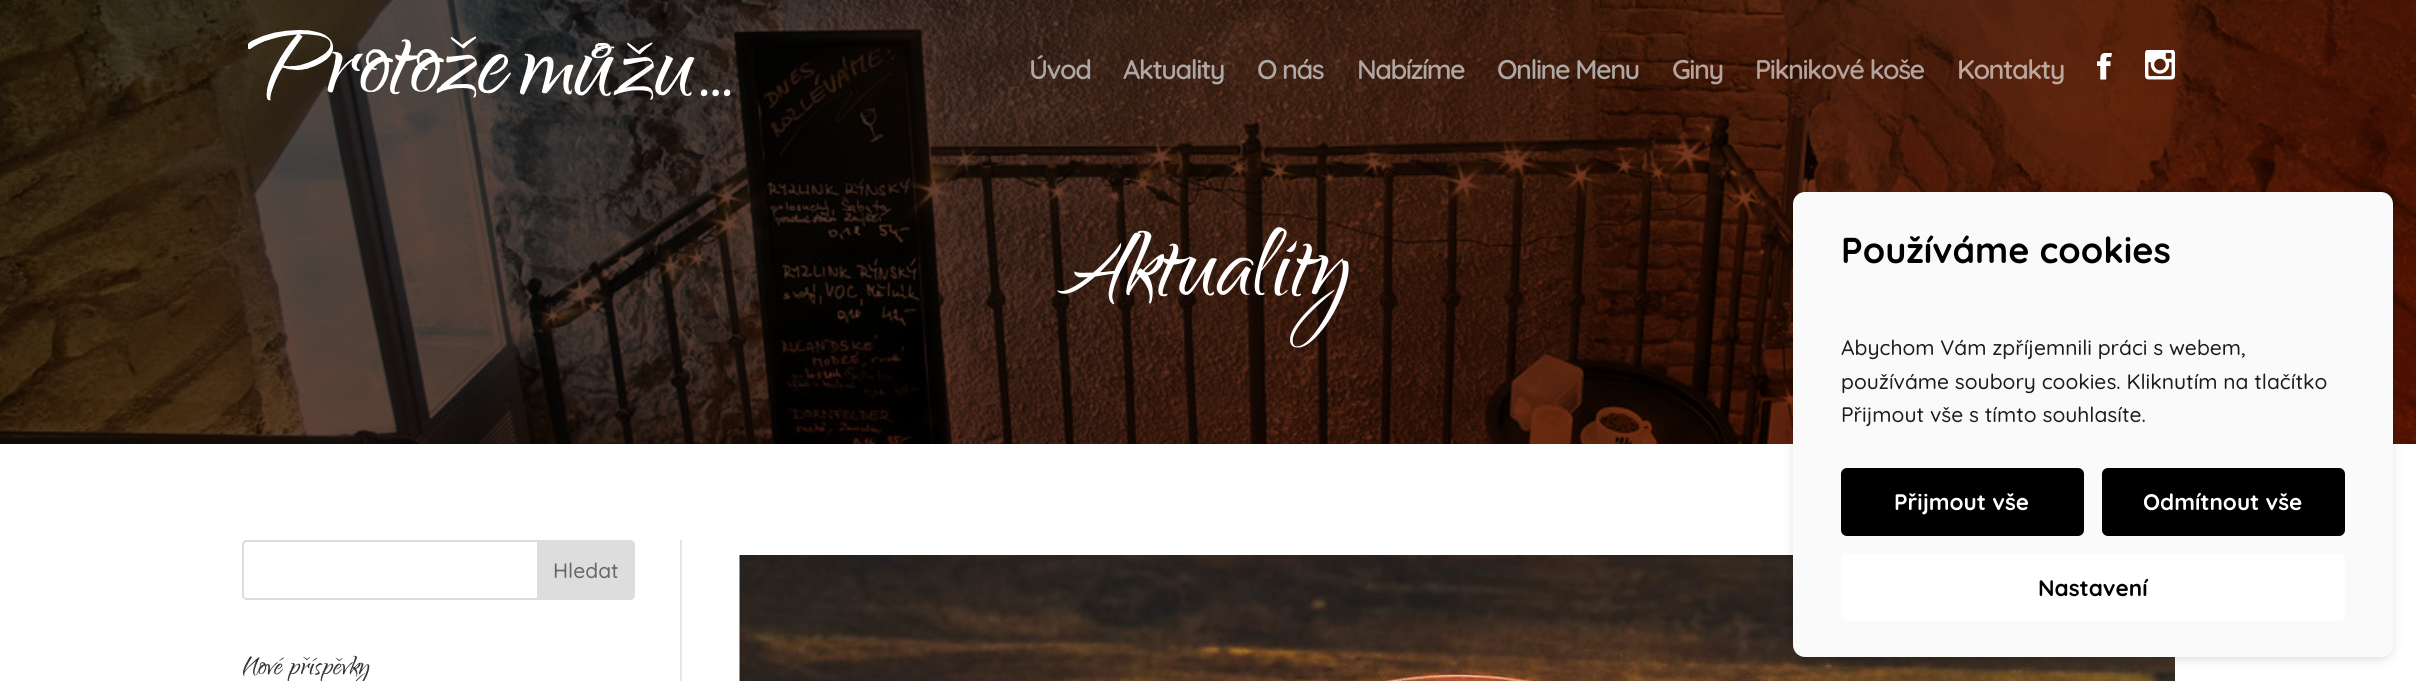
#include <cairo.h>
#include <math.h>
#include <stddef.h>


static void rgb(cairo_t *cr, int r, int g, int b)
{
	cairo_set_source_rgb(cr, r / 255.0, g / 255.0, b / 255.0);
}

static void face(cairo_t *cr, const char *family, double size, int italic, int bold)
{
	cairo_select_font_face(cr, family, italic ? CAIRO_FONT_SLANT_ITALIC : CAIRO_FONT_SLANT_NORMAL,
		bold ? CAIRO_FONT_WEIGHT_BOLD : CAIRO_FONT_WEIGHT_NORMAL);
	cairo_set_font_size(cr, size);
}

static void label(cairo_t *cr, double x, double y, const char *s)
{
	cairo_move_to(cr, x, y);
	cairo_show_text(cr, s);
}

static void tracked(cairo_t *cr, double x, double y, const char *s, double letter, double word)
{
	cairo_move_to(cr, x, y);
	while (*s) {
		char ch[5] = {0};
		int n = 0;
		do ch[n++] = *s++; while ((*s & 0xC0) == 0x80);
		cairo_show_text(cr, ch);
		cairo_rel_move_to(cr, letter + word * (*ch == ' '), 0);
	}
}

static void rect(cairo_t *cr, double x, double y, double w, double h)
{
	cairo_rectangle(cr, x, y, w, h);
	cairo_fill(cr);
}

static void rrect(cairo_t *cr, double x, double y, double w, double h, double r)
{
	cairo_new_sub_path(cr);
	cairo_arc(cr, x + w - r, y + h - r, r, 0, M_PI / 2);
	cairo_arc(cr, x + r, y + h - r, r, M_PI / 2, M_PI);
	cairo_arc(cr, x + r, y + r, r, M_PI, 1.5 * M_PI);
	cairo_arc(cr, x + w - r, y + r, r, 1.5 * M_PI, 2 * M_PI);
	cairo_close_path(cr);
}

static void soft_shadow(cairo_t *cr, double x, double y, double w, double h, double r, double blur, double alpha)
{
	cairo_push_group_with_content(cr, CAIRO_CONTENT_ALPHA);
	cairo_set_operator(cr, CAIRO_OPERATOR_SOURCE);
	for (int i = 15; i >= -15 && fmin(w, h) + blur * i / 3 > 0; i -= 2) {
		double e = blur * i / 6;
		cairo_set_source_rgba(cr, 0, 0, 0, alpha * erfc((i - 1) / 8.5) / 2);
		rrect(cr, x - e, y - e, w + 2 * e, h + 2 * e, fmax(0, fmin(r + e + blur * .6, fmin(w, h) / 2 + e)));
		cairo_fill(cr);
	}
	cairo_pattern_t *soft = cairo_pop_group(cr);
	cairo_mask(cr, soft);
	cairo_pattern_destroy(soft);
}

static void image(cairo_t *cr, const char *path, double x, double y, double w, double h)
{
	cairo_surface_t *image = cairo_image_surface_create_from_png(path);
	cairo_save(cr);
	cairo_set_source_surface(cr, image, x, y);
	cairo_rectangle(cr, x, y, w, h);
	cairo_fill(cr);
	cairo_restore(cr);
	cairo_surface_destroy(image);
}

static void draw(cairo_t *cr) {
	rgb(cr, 255, 255, 255);
	cairo_paint(cr);
	image(cr, "image3.png", 0, 0, 2416, 444);
	image(cr, "image0.png", 248, 30, 483, 71);
	face(cr, "Quicksand SemiBold", 27, 0, 0);
	rgb(cr, 175, 167, 163);
	tracked(cr, 1029, 79, "Úvod", -1.5, 0);
	tracked(cr, 1123, 79, "Aktuality", -1.5, 0);
	tracked(cr, 1257, 79, "O nás", -1.5, 0);
	tracked(cr, 1357, 79, "Nabízíme", -1.5, 0);
	tracked(cr, 1497, 79, "Online Menu", -1.5, 0);
	rgb(cr, 179, 163, 156);
	tracked(cr, 1672, 79, "Giny", -1.5, 0);
	tracked(cr, 1755, 79, "Piknikové koše", -1.5, 0);
	rgb(cr, 187, 167, 158);
	tracked(cr, 1957, 79, "Kontakty", -1.5, 0);
	image(cr, "image1.png", 2097, 53, 15, 27);
	image(cr, "image2.png", 2145, 50, 30, 30);
	face(cr, "Qwigley", 120, 0, 0);
	rgb(cr, 255, 255, 255);
	label(cr, 1055, 294, "Aktuality");
	rgb(cr, 230, 230, 230);
	rect(cr, 680, 540, 2, 141);
	rrect(cr, 243, 541, 391, 58, 4);
	rgb(cr, 221, 221, 221);
	cairo_stroke(cr);
	cairo_new_path(cr);
	cairo_move_to(cr, 538, 541);
	cairo_line_to(cr, 630, 541);
	cairo_curve_to(cr, 632, 541, 634, 543, 634, 545);
	cairo_line_to(cr, 634, 595);
	cairo_curve_to(cr, 634, 597, 632, 599, 630, 599);
	cairo_line_to(cr, 538, 599);
	cairo_close_path(cr);
	cairo_fill_preserve(cr);
	cairo_stroke(cr);
	face(cr, "Quicksand Light", 21, 0, 0);
	rgb(cr, 102, 102, 102);
	label(cr, 553, 578, "Hledat");
	face(cr, "Qwigley", 34.5, 0, 0);
	rgb(cr, 51, 51, 51);
	label(cr, 242, 674, "Nové příspěvky");
	image(cr, "image4.png", 739, 555, 1436, 126);
	rgb(cr, 0, 0, 0);
	soft_shadow(cr, 1796, 198, 594, 459, 9, 6, 0.2);
	rgb(cr, 250, 250, 250);
	rrect(cr, 1793, 192, 600, 465, 12);
	cairo_fill(cr);
	face(cr, "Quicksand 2 Light", 36, 0, 0);
	rgb(cr, 0, 0, 0);
	label(cr, 1841, 263, "Používáme cookies");
	face(cr, "Quicksand Light", 21, 0, 0);
	rgb(cr, 29, 29, 29);
	label(cr, 1841, 355, "Abychom Vám zpříjemnili práci s webem,");
	label(cr, 1841, 389, "používáme soubory cookies. Kliknutím na tlačítko");
	label(cr, 1841, 422, "Přijmout vše s tímto souhlasíte.");
	rgb(cr, 0, 0, 0);
	rrect(cr, 1841, 468, 243, 68, 6);
	cairo_fill(cr);
	face(cr, "Quicksand 2 Light", 22.5, 0, 0);
	rgb(cr, 255, 255, 255);
	label(cr, 1894, 510, "Přijmout vše");
	rgb(cr, 0, 0, 0);
	rrect(cr, 2102, 468, 243, 68, 6);
	cairo_fill(cr);
	rgb(cr, 255, 255, 255);
	label(cr, 2143, 510, "Odmítnout vše");
	rrect(cr, 1841, 554, 504, 67, 6);
	cairo_fill(cr);
	rgb(cr, 0, 0, 0);
	label(cr, 2038, 596, "Nastavení");
}

int main(void) {
	cairo_surface_t *surface = cairo_image_surface_create(CAIRO_FORMAT_RGB24, 2416, 681);
	cairo_t *cr = cairo_create(surface);
	cairo_font_options_t *options = cairo_font_options_create();
	cairo_font_options_set_hint_metrics(options, CAIRO_HINT_METRICS_OFF);
	cairo_font_options_set_hint_style(options, CAIRO_HINT_STYLE_NONE);
	cairo_set_font_options(cr, options);
	cairo_set_miter_limit(cr, 4);
	draw(cr);
	cairo_surface_write_to_png(surface, "render.png");
	cairo_font_options_destroy(options);
	cairo_destroy(cr);
	cairo_surface_destroy(surface);
	return 0;
}
